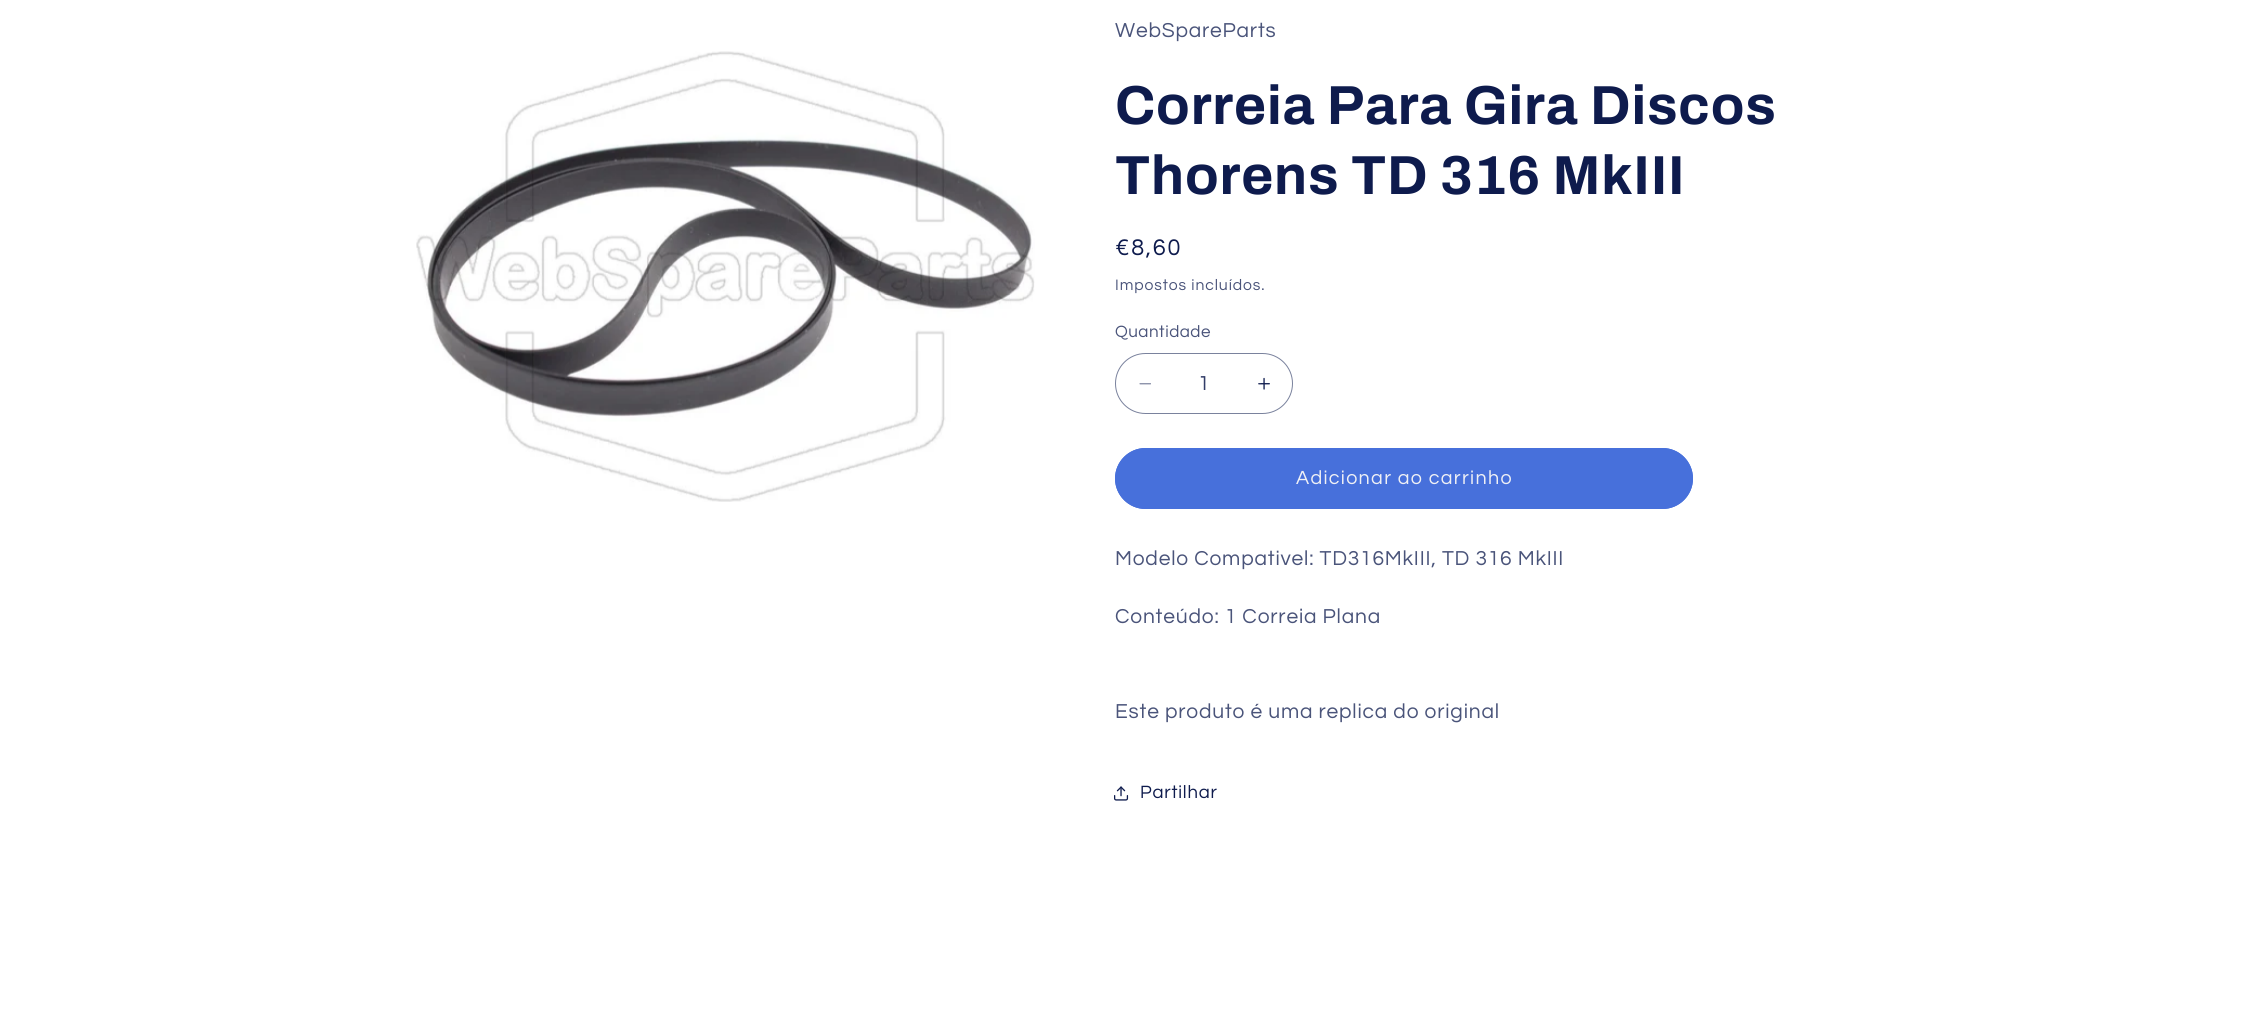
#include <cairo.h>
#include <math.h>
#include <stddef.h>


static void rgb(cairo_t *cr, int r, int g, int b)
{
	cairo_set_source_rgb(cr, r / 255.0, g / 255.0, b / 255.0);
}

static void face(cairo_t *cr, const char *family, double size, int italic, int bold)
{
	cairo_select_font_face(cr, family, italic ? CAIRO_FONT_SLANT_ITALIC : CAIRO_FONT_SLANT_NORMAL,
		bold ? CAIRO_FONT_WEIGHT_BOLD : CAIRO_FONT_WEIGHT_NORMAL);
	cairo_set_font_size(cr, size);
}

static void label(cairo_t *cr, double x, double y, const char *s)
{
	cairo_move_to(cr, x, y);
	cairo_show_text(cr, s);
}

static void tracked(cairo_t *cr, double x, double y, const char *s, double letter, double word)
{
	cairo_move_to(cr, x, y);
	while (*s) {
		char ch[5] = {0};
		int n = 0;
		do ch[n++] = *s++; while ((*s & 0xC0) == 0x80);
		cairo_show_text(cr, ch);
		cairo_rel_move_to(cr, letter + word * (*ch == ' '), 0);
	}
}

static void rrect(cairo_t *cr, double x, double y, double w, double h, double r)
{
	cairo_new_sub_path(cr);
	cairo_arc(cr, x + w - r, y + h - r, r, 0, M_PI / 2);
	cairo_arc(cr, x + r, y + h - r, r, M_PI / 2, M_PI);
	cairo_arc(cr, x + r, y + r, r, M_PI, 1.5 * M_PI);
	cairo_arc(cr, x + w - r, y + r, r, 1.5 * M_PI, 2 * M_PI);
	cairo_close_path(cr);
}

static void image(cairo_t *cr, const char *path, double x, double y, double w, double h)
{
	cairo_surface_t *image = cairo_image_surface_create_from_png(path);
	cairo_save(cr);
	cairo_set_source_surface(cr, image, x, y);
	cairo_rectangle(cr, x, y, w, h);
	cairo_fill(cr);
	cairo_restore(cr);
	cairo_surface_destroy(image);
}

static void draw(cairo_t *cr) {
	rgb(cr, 255, 255, 255);
	cairo_paint(cr);
	image(cr, "image0.png", 416, 51, 619, 451);
	face(cr, "Questrial", 21, 0, 0);
	rgb(cr, 74, 84, 122);
	tracked(cr, 1115, 37, "WebSpareParts", 0.8, 0);
	face(cr, "Archivo", 55, 0, 1);
	rgb(cr, 14, 27, 77);
	tracked(cr, 1115, 124, "Correia Para Gira Discos", 0.8, 0);
	tracked(cr, 1115, 194, "Thorens TD 316 MkIII", 0.8, 0);
	face(cr, "Questrial", 23.5, 0, 0);
	tracked(cr, 1115, 255, "€8,60", 1.75, 0);
	face(cr, "Questrial", 15.75, 0, 0);
	rgb(cr, 74, 84, 122);
	tracked(cr, 1115, 290, "Impostos incluídos.", 0.9, 0);
	face(cr, "Questrial", 17, 0, 0);
	tracked(cr, 1115, 337, "Quantidade", 0.5, 0);
	image(cr, "image1.png", 1139, 383, 12, 2);
	image(cr, "image2.png", 1258, 377, 12, 13);
	rrect(cr, 1115.5, 353.5, 177, 60, 30);
	rgb(cr, 122, 130, 157);
	cairo_set_line_width(cr, 1);
	cairo_stroke(cr);
	face(cr, "Questrial", 21, 0, 0);
	rgb(cr, 50, 61, 104);
	label(cr, 1198, 390, "1");
	rgb(cr, 71, 112, 219);
	rrect(cr, 1115, 448, 578, 61, 30.5);
	cairo_fill(cr);
	rrect(cr, 1115.5, 448.5, 577, 60, 30);
	cairo_stroke(cr);
	face(cr, "Questrial", 19.75, 0, 0);
	rgb(cr, 239, 240, 245);
	tracked(cr, 1296, 484, "Adicionar ao carrinho", 1.3, 0);
	face(cr, "Questrial", 21, 0, 0);
	rgb(cr, 74, 84, 122);
	tracked(cr, 1115, 565, "Modelo Compativel: TD316MkIII, TD 316 MkIII", 0.8, 0);
	tracked(cr, 1115, 623, "Conteúdo: 1 Correia Plana", 0.8, 0);
	tracked(cr, 1115, 718, "Este produto é uma replica do original", 0.8, 0);
	image(cr, "image3.png", 1114, 786, 15, 15);
	face(cr, "Questrial", 18.5, 0, 0);
	rgb(cr, 14, 27, 77);
	tracked(cr, 1140, 798, "Partilhar", 0.8, 0);
}

int main(void) {
	cairo_surface_t *surface = cairo_image_surface_create(CAIRO_FORMAT_RGB24, 2243, 1013);
	cairo_t *cr = cairo_create(surface);
	cairo_font_options_t *options = cairo_font_options_create();
	cairo_font_options_set_hint_metrics(options, CAIRO_HINT_METRICS_OFF);
	cairo_font_options_set_hint_style(options, CAIRO_HINT_STYLE_NONE);
	cairo_set_font_options(cr, options);
	cairo_set_miter_limit(cr, 4);
	draw(cr);
	cairo_surface_write_to_png(surface, "render.png");
	cairo_font_options_destroy(options);
	cairo_destroy(cr);
	cairo_surface_destroy(surface);
	return 0;
}
